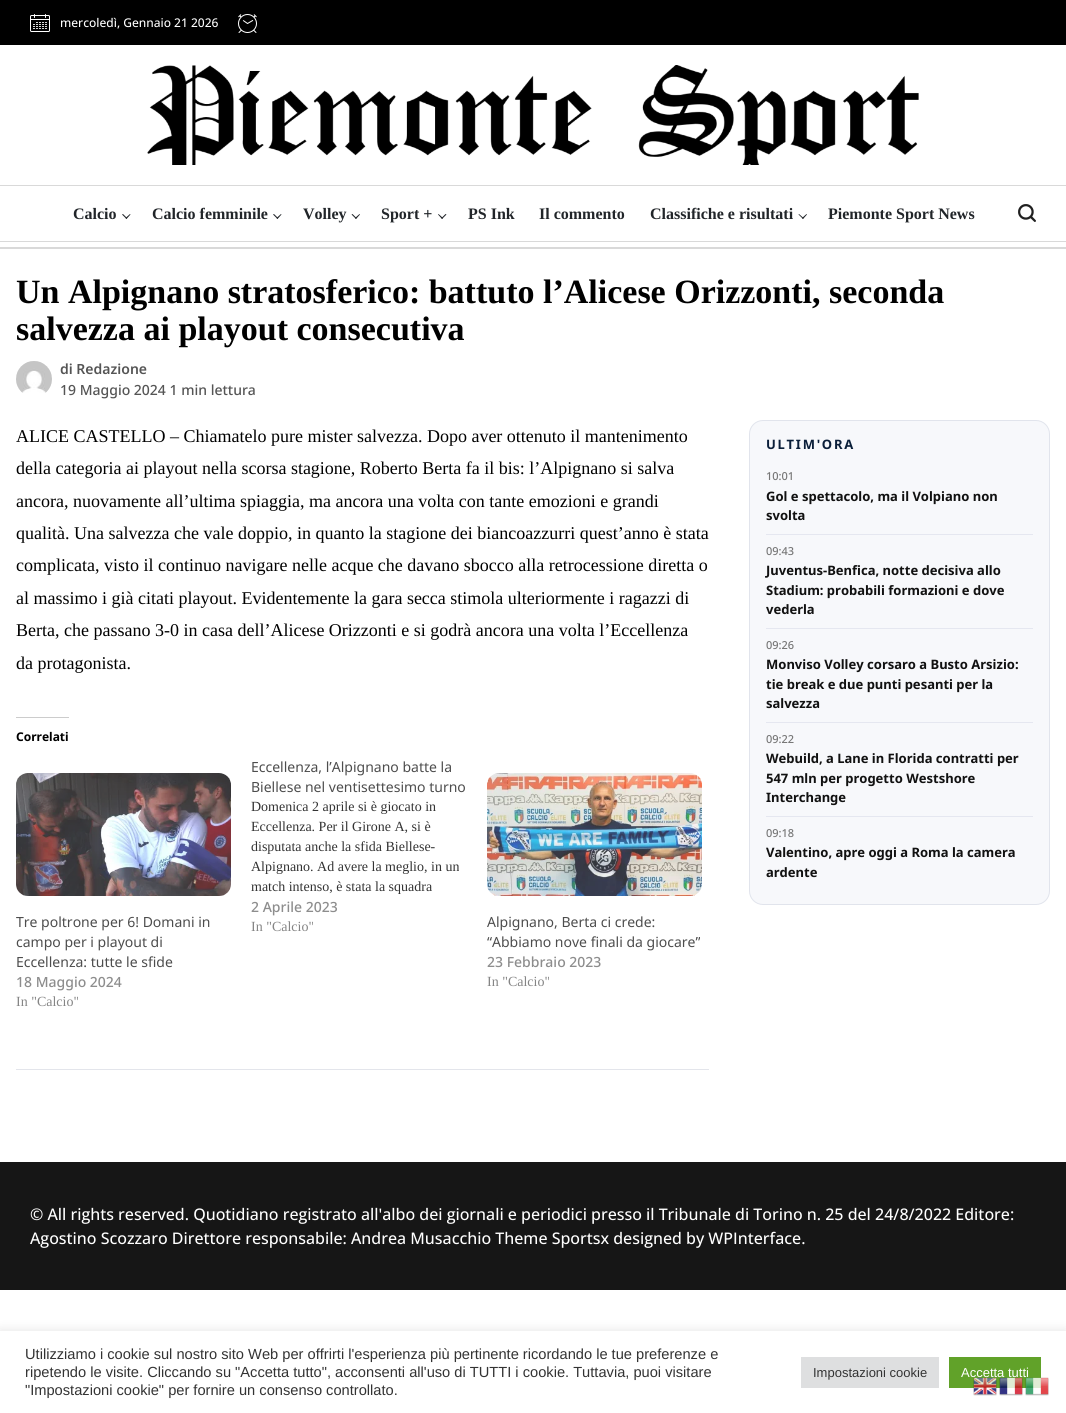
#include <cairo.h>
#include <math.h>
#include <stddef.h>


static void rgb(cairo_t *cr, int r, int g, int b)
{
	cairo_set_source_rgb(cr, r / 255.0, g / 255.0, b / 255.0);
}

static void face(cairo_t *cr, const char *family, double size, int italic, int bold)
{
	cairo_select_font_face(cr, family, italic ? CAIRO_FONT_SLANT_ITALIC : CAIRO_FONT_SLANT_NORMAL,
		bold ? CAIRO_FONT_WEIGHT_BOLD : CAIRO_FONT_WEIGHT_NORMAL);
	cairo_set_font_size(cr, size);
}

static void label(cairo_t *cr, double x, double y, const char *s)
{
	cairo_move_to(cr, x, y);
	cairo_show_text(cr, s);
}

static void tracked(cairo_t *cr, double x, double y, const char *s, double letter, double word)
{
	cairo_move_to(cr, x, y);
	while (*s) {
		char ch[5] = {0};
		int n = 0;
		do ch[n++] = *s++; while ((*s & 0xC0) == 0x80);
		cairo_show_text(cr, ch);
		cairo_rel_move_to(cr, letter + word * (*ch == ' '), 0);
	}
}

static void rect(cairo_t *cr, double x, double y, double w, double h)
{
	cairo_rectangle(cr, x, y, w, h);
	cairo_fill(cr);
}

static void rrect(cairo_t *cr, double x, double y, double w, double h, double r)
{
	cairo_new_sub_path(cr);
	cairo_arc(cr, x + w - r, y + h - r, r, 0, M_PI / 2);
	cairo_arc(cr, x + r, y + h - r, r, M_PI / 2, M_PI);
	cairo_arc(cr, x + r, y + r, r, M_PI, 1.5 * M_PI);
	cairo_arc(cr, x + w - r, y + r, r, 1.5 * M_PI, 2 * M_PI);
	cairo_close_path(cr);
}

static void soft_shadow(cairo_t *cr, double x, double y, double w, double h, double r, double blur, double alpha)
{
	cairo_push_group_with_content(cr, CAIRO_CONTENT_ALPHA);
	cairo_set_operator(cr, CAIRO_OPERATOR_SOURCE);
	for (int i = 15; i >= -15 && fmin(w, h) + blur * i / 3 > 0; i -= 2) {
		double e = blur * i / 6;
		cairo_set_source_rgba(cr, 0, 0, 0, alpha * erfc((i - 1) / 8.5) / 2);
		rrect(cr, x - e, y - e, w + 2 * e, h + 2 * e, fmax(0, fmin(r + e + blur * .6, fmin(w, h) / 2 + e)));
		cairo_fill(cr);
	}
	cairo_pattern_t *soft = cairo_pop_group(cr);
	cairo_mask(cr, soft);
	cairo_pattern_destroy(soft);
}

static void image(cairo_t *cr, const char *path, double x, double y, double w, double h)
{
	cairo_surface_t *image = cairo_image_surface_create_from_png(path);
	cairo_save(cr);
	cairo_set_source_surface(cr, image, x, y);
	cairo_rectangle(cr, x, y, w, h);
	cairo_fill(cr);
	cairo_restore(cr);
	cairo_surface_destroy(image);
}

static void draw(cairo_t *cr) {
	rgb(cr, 255, 255, 255);
	cairo_paint(cr);
	rgb(cr, 0, 0, 0);
	rect(cr, 0, 0, 1066, 45);
	image(cr, "image0.png", 30, 14, 20, 18);
	face(cr, "Open Sans Medium", 12, 0, 0);
	rgb(cr, 255, 255, 255);
	label(cr, 60, 27, "mercoledì, Gennaio 21 2026");
	image(cr, "image1.png", 238, 14, 19, 19);
	image(cr, "image2.png", 147, 65, 772, 100);
	rgb(cr, 217, 217, 217);
	rect(cr, 0, 185, 1066, 1);
	face(cr, "Liberation Serif", 16, 0, 1);
	rgb(cr, 33, 37, 41);
	label(cr, 73, 219, "Calcio");
	cairo_new_path(cr);
	cairo_move_to(cr, 122, 214.5);
	cairo_line_to(cr, 123, 214);
	cairo_line_to(cr, 127, 218);
	cairo_line_to(cr, 126.5, 219);
	cairo_close_path(cr);
	cairo_fill(cr);
	cairo_new_path(cr);
	cairo_move_to(cr, 125.5, 218);
	cairo_line_to(cr, 130, 214);
	cairo_line_to(cr, 130.5, 214.5);
	cairo_line_to(cr, 126.5, 219);
	cairo_close_path(cr);
	cairo_fill(cr);
	label(cr, 152, 219, "Calcio femminile");
	cairo_new_path(cr);
	cairo_move_to(cr, 273, 214.5);
	cairo_line_to(cr, 274, 214);
	cairo_line_to(cr, 278, 218);
	cairo_line_to(cr, 277.5, 219);
	cairo_close_path(cr);
	cairo_fill(cr);
	cairo_new_path(cr);
	cairo_move_to(cr, 276.5, 218);
	cairo_line_to(cr, 281, 214);
	cairo_line_to(cr, 281.5, 214.5);
	cairo_line_to(cr, 277.5, 219);
	cairo_close_path(cr);
	cairo_fill(cr);
	label(cr, 303, 219, "Volley");
	cairo_new_path(cr);
	cairo_move_to(cr, 351.5, 214.5);
	cairo_line_to(cr, 352.5, 214);
	cairo_line_to(cr, 356.5, 218);
	cairo_line_to(cr, 356, 219);
	cairo_close_path(cr);
	cairo_fill(cr);
	cairo_new_path(cr);
	cairo_move_to(cr, 355, 218);
	cairo_line_to(cr, 359.5, 214);
	cairo_line_to(cr, 360, 214.5);
	cairo_line_to(cr, 356, 219);
	cairo_close_path(cr);
	cairo_fill(cr);
	label(cr, 381, 219, "Sport +");
	cairo_new_path(cr);
	cairo_move_to(cr, 438, 214.5);
	cairo_line_to(cr, 438.5, 214);
	cairo_line_to(cr, 443, 218);
	cairo_line_to(cr, 442, 219);
	cairo_close_path(cr);
	cairo_fill(cr);
	cairo_new_path(cr);
	cairo_move_to(cr, 441.5, 218);
	cairo_line_to(cr, 445.5, 214);
	cairo_line_to(cr, 446.5, 214.5);
	cairo_line_to(cr, 442, 219);
	cairo_close_path(cr);
	cairo_fill(cr);
	label(cr, 468, 219, "PS Ink");
	label(cr, 539, 219, "Il commento");
	label(cr, 650, 219, "Classifiche e risultati");
	cairo_new_path(cr);
	cairo_move_to(cr, 798.5, 214.5);
	cairo_line_to(cr, 799, 214);
	cairo_line_to(cr, 803.5, 218);
	cairo_line_to(cr, 803, 219);
	cairo_close_path(cr);
	cairo_fill(cr);
	cairo_new_path(cr);
	cairo_move_to(cr, 802, 218);
	cairo_line_to(cr, 806.5, 214);
	cairo_line_to(cr, 807, 214.5);
	cairo_line_to(cr, 803, 219);
	cairo_close_path(cr);
	cairo_fill(cr);
	label(cr, 828, 219, "Piemonte Sport News");
	image(cr, "image3.png", 1018, 204, 18, 18);
	rgb(cr, 217, 217, 217);
	rect(cr, 0, 241, 1066, 1);
	rect(cr, 0, 247, 1066, 2);
	face(cr, "Liberation Serif", 34, 0, 1);
	rgb(cr, 0, 0, 0);
	label(cr, 16, 303, "Un Alpignano stratosferico: battuto l’Alicese Orizzonti, seconda");
	label(cr, 16, 340, "salvezza ai playout consecutiva");
	image(cr, "image4.png", 16, 361, 36, 32);
	face(cr, "Noto Sans SemiBold", 14, 0, 0);
	rgb(cr, 85, 85, 85);
	label(cr, 60, 374, "di Redazione");
	face(cr, "Noto Sans Medium", 14, 0, 0);
	label(cr, 60, 395, "19 Maggio 2024 1 min lettura");
	face(cr, "Liberation Serif", 18, 0, 0);
	rgb(cr, 0, 0, 0);
	label(cr, 16, 442, "ALICE CASTELLO – Chiamatelo pure mister salvezza. Dopo aver ottenuto il mantenimento");
	label(cr, 16, 474, "della categoria ai playout nella scorsa stagione, Roberto Berta fa il bis: l’Alpignano si salva");
	label(cr, 16, 507, "ancora, nuovamente all’ultima spiaggia, ma ancora una volta con tante emozioni e grandi");
	label(cr, 16, 539, "qualità. Una salvezza che vale doppio, in quanto la stagione dei biancoazzurri quest’anno è stata");
	label(cr, 16, 571, "complicata, visto il continuo navigare nelle acque che davano sbocco alla retrocessione diretta o");
	label(cr, 16, 604, "al massimo i già citati playout. Evidentemente la gara secca stimola ulteriormente i ragazzi di");
	label(cr, 16, 636, "Berta, che passano 3-0 in casa dell’Alicese Orizzonti e si godrà ancora una volta l’Eccellenza");
	label(cr, 16, 669, "da protagonista.");
	rgb(cr, 204, 204, 204);
	rect(cr, 16, 717, 53, 1);
	face(cr, "Noto Sans", 12, 0, 1);
	rgb(cr, 0, 0, 0);
	label(cr, 16, 741, "Correlati");
	face(cr, "Noto Sans", 14, 0, 0);
	rgb(cr, 77, 77, 77);
	label(cr, 251, 772, "Eccellenza, l’Alpignano batte la");
	label(cr, 251, 792, "Biellese nel ventisettesimo turno");
	face(cr, "Liberation Serif", 14, 0, 0);
	rgb(cr, 51, 51, 51);
	label(cr, 251, 811, "Domenica 2 aprile si è giocato in");
	label(cr, 251, 831, "Eccellenza. Per il Girone A, si è");
	label(cr, 251, 851, "disputata anche la sfida Biellese-");
	label(cr, 251, 871, "Alpignano. Ad avere la meglio, in un");
	label(cr, 251, 891, "match intenso, è stata la squadra");
	face(cr, "Noto Sans Medium", 14, 0, 0);
	rgb(cr, 141, 141, 141);
	label(cr, 251, 912, "2 Aprile 2023");
	face(cr, "Liberation Serif", 14, 0, 0);
	rgb(cr, 133, 133, 133);
	label(cr, 251, 931, "In \"Calcio\"");
	image(cr, "image5.png", 16, 773, 215, 123);
	face(cr, "Noto Sans", 14, 0, 0);
	rgb(cr, 77, 77, 77);
	label(cr, 16, 927, "Tre poltrone per 6! Domani in");
	label(cr, 16, 947, "campo per i playout di");
	label(cr, 16, 967, "Eccellenza: tutte le sfide");
	face(cr, "Noto Sans Medium", 14, 0, 0);
	rgb(cr, 141, 141, 141);
	label(cr, 16, 987, "18 Maggio 2024");
	face(cr, "Liberation Serif", 14, 0, 0);
	rgb(cr, 133, 133, 133);
	label(cr, 16, 1006, "In \"Calcio\"");
	image(cr, "image6.png", 487, 773, 215, 123);
	face(cr, "Noto Sans", 14, 0, 0);
	rgb(cr, 77, 77, 77);
	label(cr, 487, 927, "Alpignano, Berta ci crede:");
	label(cr, 487, 947, "“Abbiamo nove finali da giocare”");
	face(cr, "Noto Sans Medium", 14, 0, 0);
	rgb(cr, 141, 141, 141);
	label(cr, 487, 967, "23 Febbraio 2023");
	face(cr, "Liberation Serif", 14, 0, 0);
	rgb(cr, 133, 133, 133);
	label(cr, 487, 986, "In \"Calcio\"");
	rgb(cr, 227, 229, 235);
	rect(cr, 16, 1069, 693, 1);
	rgb(cr, 247, 248, 251);
	rrect(cr, 749.5, 420.5, 300, 484, 13.5);
	cairo_fill_preserve(cr);
	rgb(cr, 225, 228, 236);
	cairo_set_line_width(cr, 1);
	cairo_stroke(cr);
	face(cr, "Noto Sans", 13, 0, 1);
	rgb(cr, 11, 31, 58);
	tracked(cr, 766, 449, "ULTIM'ORA", 1.75, 0);
	rgb(cr, 229, 231, 240);
	rect(cr, 766, 534, 267, 1);
	face(cr, "Noto Sans Medium", 11, 0, 0);
	rgb(cr, 119, 119, 119);
	label(cr, 766, 480, "10:01");
	face(cr, "Noto Sans", 13, 0, 1);
	rgb(cr, 17, 17, 17);
	label(cr, 766, 501, "Gol e spettacolo, ma il Volpiano non");
	label(cr, 766, 520, "svolta");
	rgb(cr, 229, 231, 240);
	rect(cr, 766, 628, 267, 1);
	face(cr, "Noto Sans Medium", 11, 0, 0);
	rgb(cr, 119, 119, 119);
	label(cr, 766, 555, "09:43");
	face(cr, "Noto Sans", 13, 0, 1);
	rgb(cr, 17, 17, 17);
	label(cr, 766, 575, "Juventus-Benfica, notte decisiva allo");
	label(cr, 766, 595, "Stadium: probabili formazioni e dove");
	label(cr, 766, 614, "vederla");
	rgb(cr, 229, 231, 240);
	rect(cr, 766, 722, 267, 1);
	face(cr, "Noto Sans Medium", 11, 0, 0);
	rgb(cr, 119, 119, 119);
	label(cr, 766, 649, "09:26");
	face(cr, "Noto Sans", 13, 0, 1);
	rgb(cr, 17, 17, 17);
	label(cr, 766, 669, "Monviso Volley corsaro a Busto Arsizio:");
	label(cr, 766, 689, "tie break e due punti pesanti per la");
	label(cr, 766, 708, "salvezza");
	rgb(cr, 229, 231, 240);
	rect(cr, 766, 816, 267, 1);
	face(cr, "Noto Sans Medium", 11, 0, 0);
	rgb(cr, 119, 119, 119);
	label(cr, 766, 743, "09:22");
	face(cr, "Noto Sans", 13, 0, 1);
	rgb(cr, 17, 17, 17);
	label(cr, 766, 763, "Webuild, a Lane in Florida contratti per");
	label(cr, 766, 783, "547 mln per progetto Westshore");
	label(cr, 766, 802, "Interchange");
	face(cr, "Noto Sans Medium", 11, 0, 0);
	rgb(cr, 119, 119, 119);
	label(cr, 766, 837, "09:18");
	face(cr, "Noto Sans", 13, 0, 1);
	rgb(cr, 17, 17, 17);
	label(cr, 766, 857, "Valentino, apre oggi a Roma la camera");
	label(cr, 766, 877, "ardente");
	rgb(cr, 22, 22, 22);
	rect(cr, 0, 1162, 1066, 128);
	face(cr, "Open Sans Medium", 16, 0, 0);
	rgb(cr, 255, 255, 255);
	label(cr, 30, 1220, "© All rights reserved. Quotidiano registrato all'albo dei giornali e periodici presso il Tribunale di Torino n. 25 del 24/8/2022 Editore:");
	label(cr, 30, 1244, "Agostino Scozzaro Direttore responsabile: Andrea Musacchio Theme Sportsx designed by WPInterface.");
	rgb(cr, 172, 171, 171);
	soft_shadow(cr, 0, 1330, 1066, 82, 0, 5, 0.3);
	rgb(cr, 255, 255, 255);
	rect(cr, 0, 1331, 1066, 82);
	face(cr, "Liberation Sans", 14.65, 0, 0);
	rgb(cr, 51, 51, 51);
	label(cr, 25, 1359, "Utilizziamo i cookie sul nostro sito Web per offrirti l'esperienza più pertinente ricordando le tue preferenze e");
	label(cr, 25, 1377, "ripetendo le visite. Cliccando su \"Accetta tutto\", acconsenti all'uso di TUTTI i cookie. Tuttavia, puoi visitare");
	label(cr, 25, 1395, "\"Impostazioni cookie\" per fornire un consenso controllato.");
	rgb(cr, 222, 223, 224);
	rect(cr, 801, 1357, 138, 31);
	face(cr, "Liberation Sans", 13, 0, 0);
	rgb(cr, 51, 51, 51);
	label(cr, 813, 1377, "Impostazioni cookie");
	rgb(cr, 97, 162, 41);
	rect(cr, 949, 1357, 92, 31);
	rgb(cr, 255, 255, 255);
	label(cr, 961, 1377, "Accetta tutti");
	image(cr, "image7.png", 973, 1377, 24, 19);
	image(cr, "image8.png", 999, 1377, 24, 19);
	image(cr, "image9.png", 1025, 1377, 24, 19);
}

int main(void) {
	cairo_surface_t *surface = cairo_image_surface_create(CAIRO_FORMAT_RGB24, 1066, 1413);
	cairo_t *cr = cairo_create(surface);
	cairo_font_options_t *options = cairo_font_options_create();
	cairo_font_options_set_hint_metrics(options, CAIRO_HINT_METRICS_OFF);
	cairo_font_options_set_hint_style(options, CAIRO_HINT_STYLE_NONE);
	cairo_set_font_options(cr, options);
	cairo_set_miter_limit(cr, 4);
	draw(cr);
	cairo_surface_write_to_png(surface, "render.png");
	cairo_font_options_destroy(options);
	cairo_destroy(cr);
	cairo_surface_destroy(surface);
	return 0;
}
